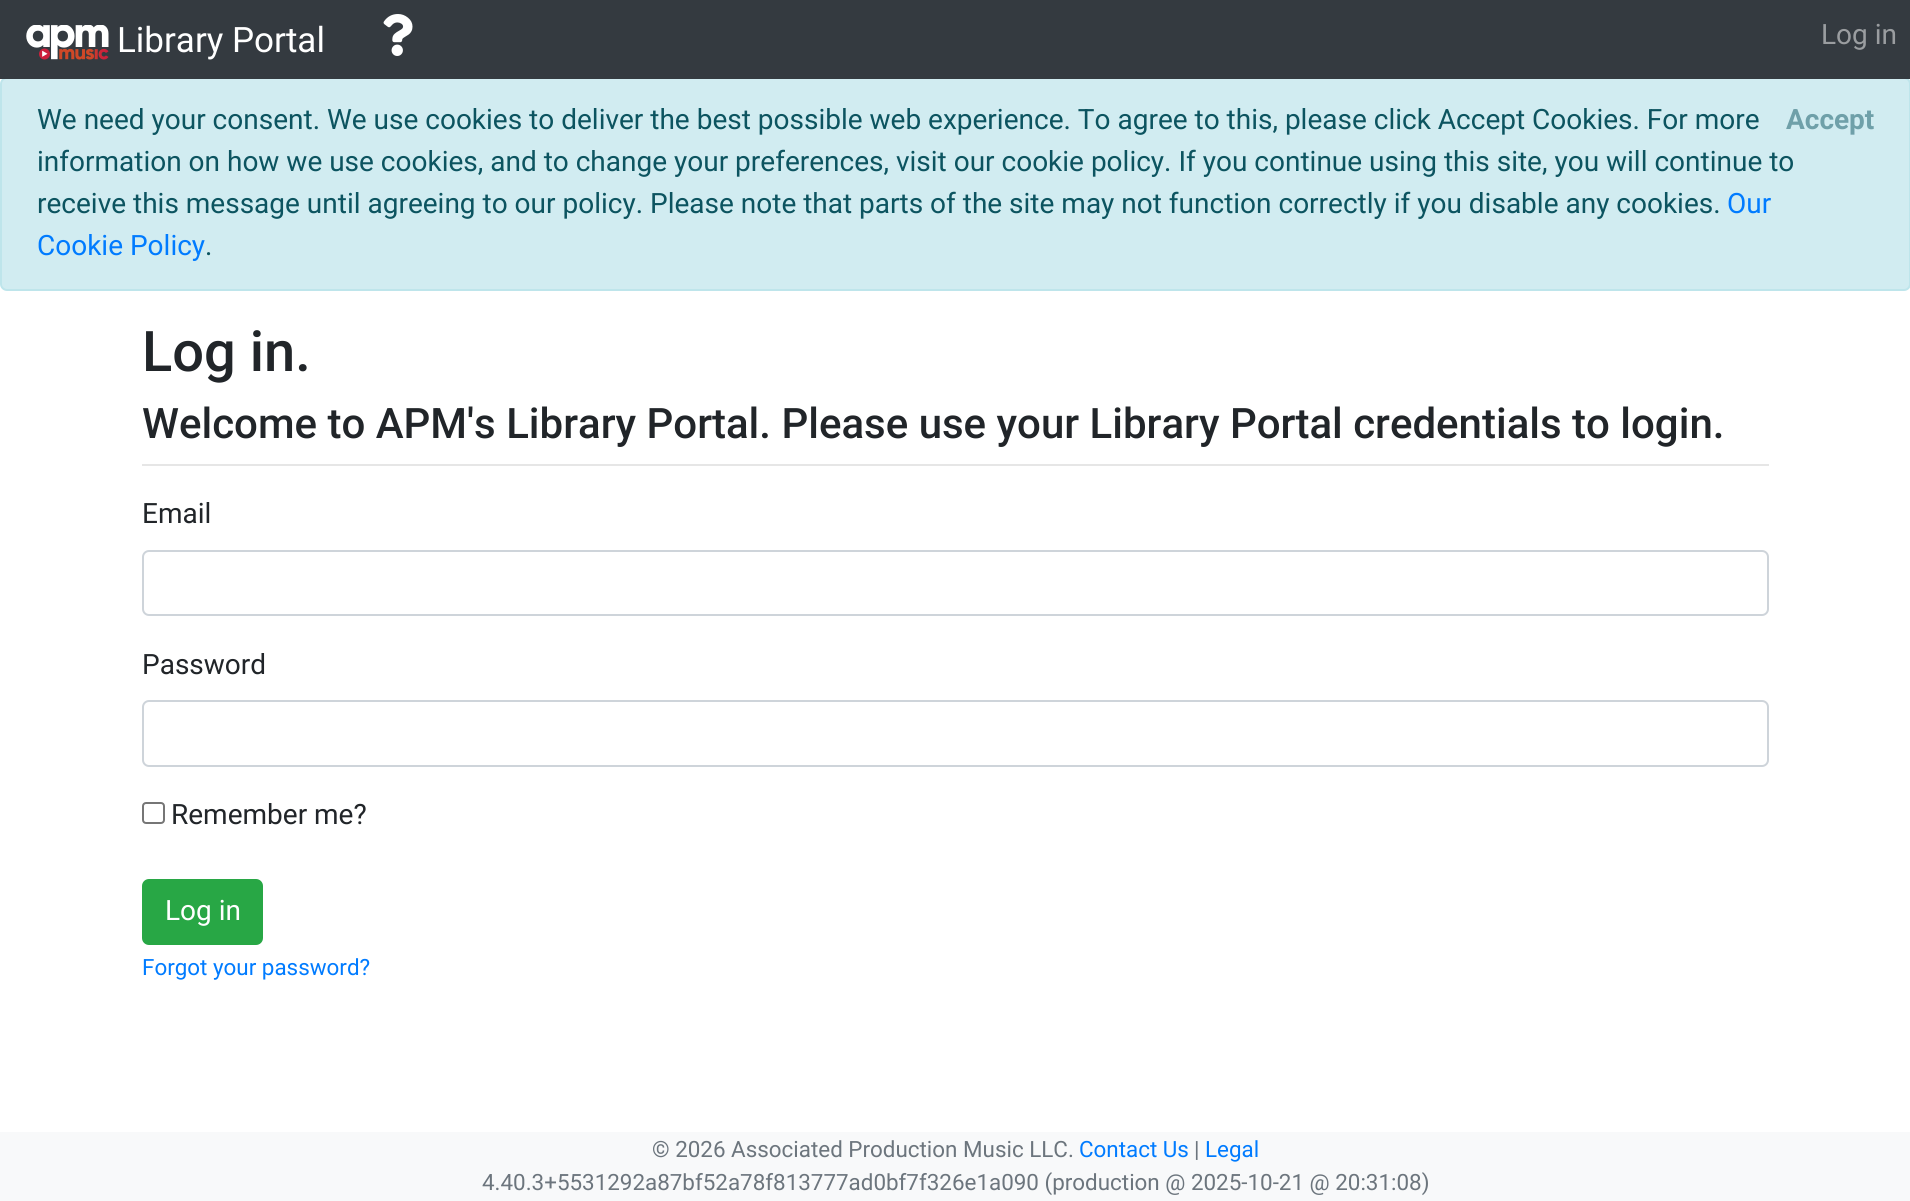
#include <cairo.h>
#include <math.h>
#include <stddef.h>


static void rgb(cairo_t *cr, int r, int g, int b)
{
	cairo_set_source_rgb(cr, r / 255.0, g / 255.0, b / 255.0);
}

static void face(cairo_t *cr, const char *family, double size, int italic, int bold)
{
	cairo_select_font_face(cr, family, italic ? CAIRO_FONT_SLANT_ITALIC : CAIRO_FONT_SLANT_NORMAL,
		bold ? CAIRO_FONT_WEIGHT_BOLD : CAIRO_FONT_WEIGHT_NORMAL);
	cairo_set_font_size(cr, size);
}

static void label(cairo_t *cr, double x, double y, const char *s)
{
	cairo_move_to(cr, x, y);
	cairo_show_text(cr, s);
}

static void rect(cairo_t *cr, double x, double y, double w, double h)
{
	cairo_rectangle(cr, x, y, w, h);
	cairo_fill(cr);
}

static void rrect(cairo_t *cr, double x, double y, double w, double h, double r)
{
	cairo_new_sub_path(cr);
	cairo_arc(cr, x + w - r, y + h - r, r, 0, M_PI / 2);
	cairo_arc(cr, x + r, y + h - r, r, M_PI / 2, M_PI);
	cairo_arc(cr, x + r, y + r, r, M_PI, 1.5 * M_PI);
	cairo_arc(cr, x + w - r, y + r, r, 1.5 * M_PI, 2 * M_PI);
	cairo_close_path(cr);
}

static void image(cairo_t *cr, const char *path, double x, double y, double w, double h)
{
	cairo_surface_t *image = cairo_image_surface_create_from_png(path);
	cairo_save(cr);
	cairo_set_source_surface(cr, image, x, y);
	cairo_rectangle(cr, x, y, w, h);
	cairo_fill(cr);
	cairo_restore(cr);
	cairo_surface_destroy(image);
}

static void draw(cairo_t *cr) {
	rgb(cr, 255, 255, 255);
	cairo_paint(cr);
	rgb(cr, 209, 236, 241);
	rrect(cr, 1, 78, 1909, 212, 6);
	cairo_fill_preserve(cr);
	rgb(cr, 190, 229, 235);
	cairo_stroke(cr);
	rgb(cr, 52, 58, 64);
	rect(cr, 0, 0, 1910, 79);
	image(cr, "image0.png", 26, 25, 83, 35);
	face(cr, "Roboto", 35, 0, 0);
	rgb(cr, 255, 255, 255);
	label(cr, 117, 52, "Library Portal");
	image(cr, "image1.png", 383, 14, 30, 42);
	face(cr, "Roboto", 28, 0, 0);
	rgb(cr, 154, 157, 160);
	label(cr, 1821, 44, "Log in");
	rgb(cr, 12, 84, 96);
	label(cr, 37, 129, "We need your consent. We use cookies to deliver the best possible web experience. To agree to this, please click Accept Cookies. For more");
	face(cr, "Roboto", 28, 0, 1);
	rgb(cr, 111, 160, 169);
	label(cr, 1786, 129, "Accept");
	face(cr, "Roboto", 28, 0, 0);
	rgb(cr, 12, 84, 96);
	label(cr, 37, 171, "information on how we use cookies, and to change your preferences, visit our cookie policy. If you continue using this site, you will continue to");
	label(cr, 37, 213, "receive this message until agreeing to our policy. Please note that parts of the site may not function correctly if you disable any cookies.");
	rgb(cr, 0, 123, 255);
	label(cr, 1727, 213, "Our");
	label(cr, 37, 255, "Cookie Policy");
	rgb(cr, 12, 84, 96);
	label(cr, 205, 255, ".");
	face(cr, "Roboto Medium", 56, 0, 0);
	rgb(cr, 33, 37, 41);
	label(cr, 142, 371, "Log in.");
	face(cr, "Roboto Medium", 42, 0, 0);
	label(cr, 142, 438, "Welcome to APM's Library Portal. Please use your Library Portal credentials to login.");
	rgb(cr, 230, 230, 230);
	rect(cr, 142, 464, 1627, 2);
	face(cr, "Roboto", 28, 0, 0);
	rgb(cr, 33, 37, 41);
	label(cr, 142, 523, "Email");
	rrect(cr, 143, 551, 1625, 64, 6);
	rgb(cr, 206, 212, 218);
	cairo_stroke(cr);
	rgb(cr, 33, 37, 41);
	label(cr, 142, 674, "Password");
	rrect(cr, 143, 701, 1625, 65, 6);
	rgb(cr, 206, 212, 218);
	cairo_stroke(cr);
	rrect(cr, 143, 803, 21, 20, 3);
	rgb(cr, 118, 118, 118);
	cairo_stroke(cr);
	rgb(cr, 33, 37, 41);
	label(cr, 171, 824, "Remember me?");
	rgb(cr, 40, 167, 69);
	rrect(cr, 143, 880, 119, 64, 6);
	cairo_fill_preserve(cr);
	cairo_stroke(cr);
	rgb(cr, 255, 255, 255);
	label(cr, 165, 920, "Log in");
	face(cr, "Roboto", 22.4, 0, 0);
	rgb(cr, 0, 123, 255);
	label(cr, 142, 975, "Forgot your password?");
	rgb(cr, 248, 249, 250);
	rect(cr, 0, 1132, 1910, 69);
	rgb(cr, 108, 117, 125);
	label(cr, 652, 1157, "© 2026 Associated Production Music LLC.");
	rgb(cr, 0, 123, 255);
	label(cr, 1079, 1157, "Contact Us");
	rgb(cr, 108, 117, 125);
	label(cr, 1194, 1157, "|");
	rgb(cr, 0, 123, 255);
	label(cr, 1205, 1157, "Legal");
	rgb(cr, 108, 117, 125);
	label(cr, 482, 1190, "4.40.3+5531292a87bf52a78f813777ad0bf7f326e1a090 (production @ 2025-10-21 @ 20:31:08)");
}

int main(void) {
	cairo_surface_t *surface = cairo_image_surface_create(CAIRO_FORMAT_RGB24, 1910, 1201);
	cairo_t *cr = cairo_create(surface);
	cairo_font_options_t *options = cairo_font_options_create();
	cairo_font_options_set_hint_metrics(options, CAIRO_HINT_METRICS_OFF);
	cairo_font_options_set_hint_style(options, CAIRO_HINT_STYLE_NONE);
	cairo_set_font_options(cr, options);
	cairo_set_miter_limit(cr, 4);
	draw(cr);
	cairo_surface_write_to_png(surface, "render.png");
	cairo_font_options_destroy(options);
	cairo_destroy(cr);
	cairo_surface_destroy(surface);
	return 0;
}
